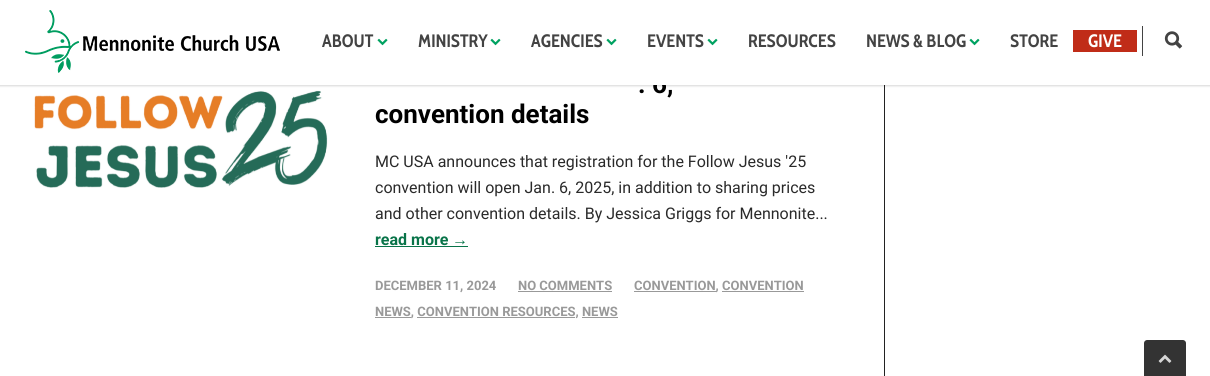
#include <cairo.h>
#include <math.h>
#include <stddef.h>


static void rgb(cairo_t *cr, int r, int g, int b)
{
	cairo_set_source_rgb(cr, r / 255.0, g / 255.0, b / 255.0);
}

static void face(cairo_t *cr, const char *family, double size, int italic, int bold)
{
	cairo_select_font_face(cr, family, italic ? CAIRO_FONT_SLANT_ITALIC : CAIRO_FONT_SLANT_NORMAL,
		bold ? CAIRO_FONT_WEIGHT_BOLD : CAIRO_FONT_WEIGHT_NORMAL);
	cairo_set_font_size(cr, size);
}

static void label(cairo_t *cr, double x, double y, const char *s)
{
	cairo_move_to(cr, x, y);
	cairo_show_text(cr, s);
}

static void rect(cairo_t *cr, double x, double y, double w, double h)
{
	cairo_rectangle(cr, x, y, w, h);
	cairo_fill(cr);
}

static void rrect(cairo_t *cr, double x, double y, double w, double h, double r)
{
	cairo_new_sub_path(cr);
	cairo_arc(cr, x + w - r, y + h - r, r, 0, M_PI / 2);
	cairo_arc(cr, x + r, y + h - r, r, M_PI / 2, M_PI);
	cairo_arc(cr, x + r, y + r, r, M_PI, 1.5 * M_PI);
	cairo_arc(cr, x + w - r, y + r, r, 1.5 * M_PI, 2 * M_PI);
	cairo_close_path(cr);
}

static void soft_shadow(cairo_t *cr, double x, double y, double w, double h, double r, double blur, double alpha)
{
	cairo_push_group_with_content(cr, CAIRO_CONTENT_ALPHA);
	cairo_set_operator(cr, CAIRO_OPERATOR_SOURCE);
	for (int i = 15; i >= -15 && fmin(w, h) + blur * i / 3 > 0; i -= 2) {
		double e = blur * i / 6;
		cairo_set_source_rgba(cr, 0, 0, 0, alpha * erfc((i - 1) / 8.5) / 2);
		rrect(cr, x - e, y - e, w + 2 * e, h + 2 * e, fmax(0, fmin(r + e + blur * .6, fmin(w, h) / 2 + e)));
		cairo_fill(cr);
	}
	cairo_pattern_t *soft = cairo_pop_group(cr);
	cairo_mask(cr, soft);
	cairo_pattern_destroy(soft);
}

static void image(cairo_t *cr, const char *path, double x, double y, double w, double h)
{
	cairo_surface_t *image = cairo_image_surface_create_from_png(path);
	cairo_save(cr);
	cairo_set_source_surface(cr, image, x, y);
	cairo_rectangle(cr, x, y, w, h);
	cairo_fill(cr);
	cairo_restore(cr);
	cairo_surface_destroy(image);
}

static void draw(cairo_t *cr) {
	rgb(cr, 255, 255, 255);
	cairo_paint(cr);
	rgb(cr, 34, 34, 34);
	rect(cr, 884, 85, 1, 291);
	rgb(cr, 0, 0, 0);
	soft_shadow(cr, -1, -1, 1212, 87, 0, 1, 0.16);
	face(cr, "Roboto", 26, 0, 1);
	rgb(cr, 0, 0, 0);
	label(cr, 638, 93, ". 6,");
	rgb(cr, 255, 255, 255);
	rect(cr, 0, 0, 1210, 85);
	image(cr, "image0.png", 25, 10, 255, 63);
	face(cr, "Cabin Condensed", 18, 0, 1);
	rgb(cr, 67, 67, 67);
	label(cr, 322, 47, "ABOUT");
	image(cr, "image1.png", 377, 38, 11, 8);
	label(cr, 418, 47, "MINISTRY");
	image(cr, "image1.png", 490, 38, 11, 8);
	label(cr, 531, 47, "AGENCIES");
	image(cr, "image1.png", 606, 38, 11, 8);
	label(cr, 647, 47, "EVENTS");
	image(cr, "image1.png", 707, 38, 11, 8);
	label(cr, 748, 47, "RESOURCES");
	label(cr, 866, 47, "NEWS & BLOG");
	image(cr, "image1.png", 969, 38, 11, 8);
	label(cr, 1010, 47, "STORE");
	rgb(cr, 192, 44, 24);
	rect(cr, 1073, 30, 64, 22);
	rgb(cr, 255, 255, 255);
	label(cr, 1088, 47, "GIVE");
	rgb(cr, 67, 67, 67);
	rect(cr, 1142, 26, 1, 30);
	image(cr, "image2.png", 1164, 31, 19, 18);
	image(cr, "image3.png", 34, 90, 294, 98);
	face(cr, "Roboto", 26, 0, 1);
	rgb(cr, 0, 0, 0);
	label(cr, 375, 123, "convention details");
	face(cr, "Roboto", 16, 0, 0);
	rgb(cr, 42, 42, 42);
	label(cr, 375, 167, "MC USA announces that registration for the Follow Jesus '25");
	label(cr, 375, 193, "convention will open Jan. 6, 2025, in addition to sharing prices");
	label(cr, 375, 219, "and other convention details. By Jessica Griggs for Mennonite...");
	face(cr, "Roboto", 16, 0, 1);
	rgb(cr, 9, 116, 73);
	label(cr, 375, 245, "read more");
	face(cr, "Liberation Sans", 16, 0, 1);
	label(cr, 452, 245, "→");
	rect(cr, 375, 246, 93, 1);
	face(cr, "Roboto", 13, 0, 1);
	rgb(cr, 153, 153, 153);
	label(cr, 375, 290, "DECEMBER 11, 2024");
	label(cr, 518, 290, "NO COMMENTS");
	rect(cr, 518, 291, 94, 1);
	rect(cr, 634, 291, 82, 1);
	label(cr, 634, 290, "CONVENTION, CONVENTION");
	rect(cr, 722, 291, 82, 1);
	rect(cr, 375, 317, 36, 1);
	label(cr, 375, 316, "NEWS, CONVENTION RESOURCES, NEWS");
	rect(cr, 417, 317, 158, 1);
	rect(cr, 582, 317, 36, 1);
	rgb(cr, 51, 51, 51);
	cairo_new_path(cr);
	cairo_move_to(cr, 1147, 340);
	cairo_line_to(cr, 1183, 340);
	cairo_curve_to(cr, 1184.5, 340, 1186, 341.5, 1186, 343);
	cairo_line_to(cr, 1186, 376);
	cairo_line_to(cr, 1144, 376);
	cairo_line_to(cr, 1144, 343);
	cairo_curve_to(cr, 1144, 341.5, 1145.5, 340, 1147, 340);
	cairo_close_path(cr);
	cairo_fill(cr);
	image(cr, "image4.png", 1158, 354, 14, 9);
}

int main(void) {
	cairo_surface_t *surface = cairo_image_surface_create(CAIRO_FORMAT_RGB24, 1210, 376);
	cairo_t *cr = cairo_create(surface);
	cairo_font_options_t *options = cairo_font_options_create();
	cairo_font_options_set_hint_metrics(options, CAIRO_HINT_METRICS_OFF);
	cairo_font_options_set_hint_style(options, CAIRO_HINT_STYLE_NONE);
	cairo_set_font_options(cr, options);
	cairo_set_miter_limit(cr, 4);
	draw(cr);
	cairo_surface_write_to_png(surface, "render.png");
	cairo_font_options_destroy(options);
	cairo_destroy(cr);
	cairo_surface_destroy(surface);
	return 0;
}
